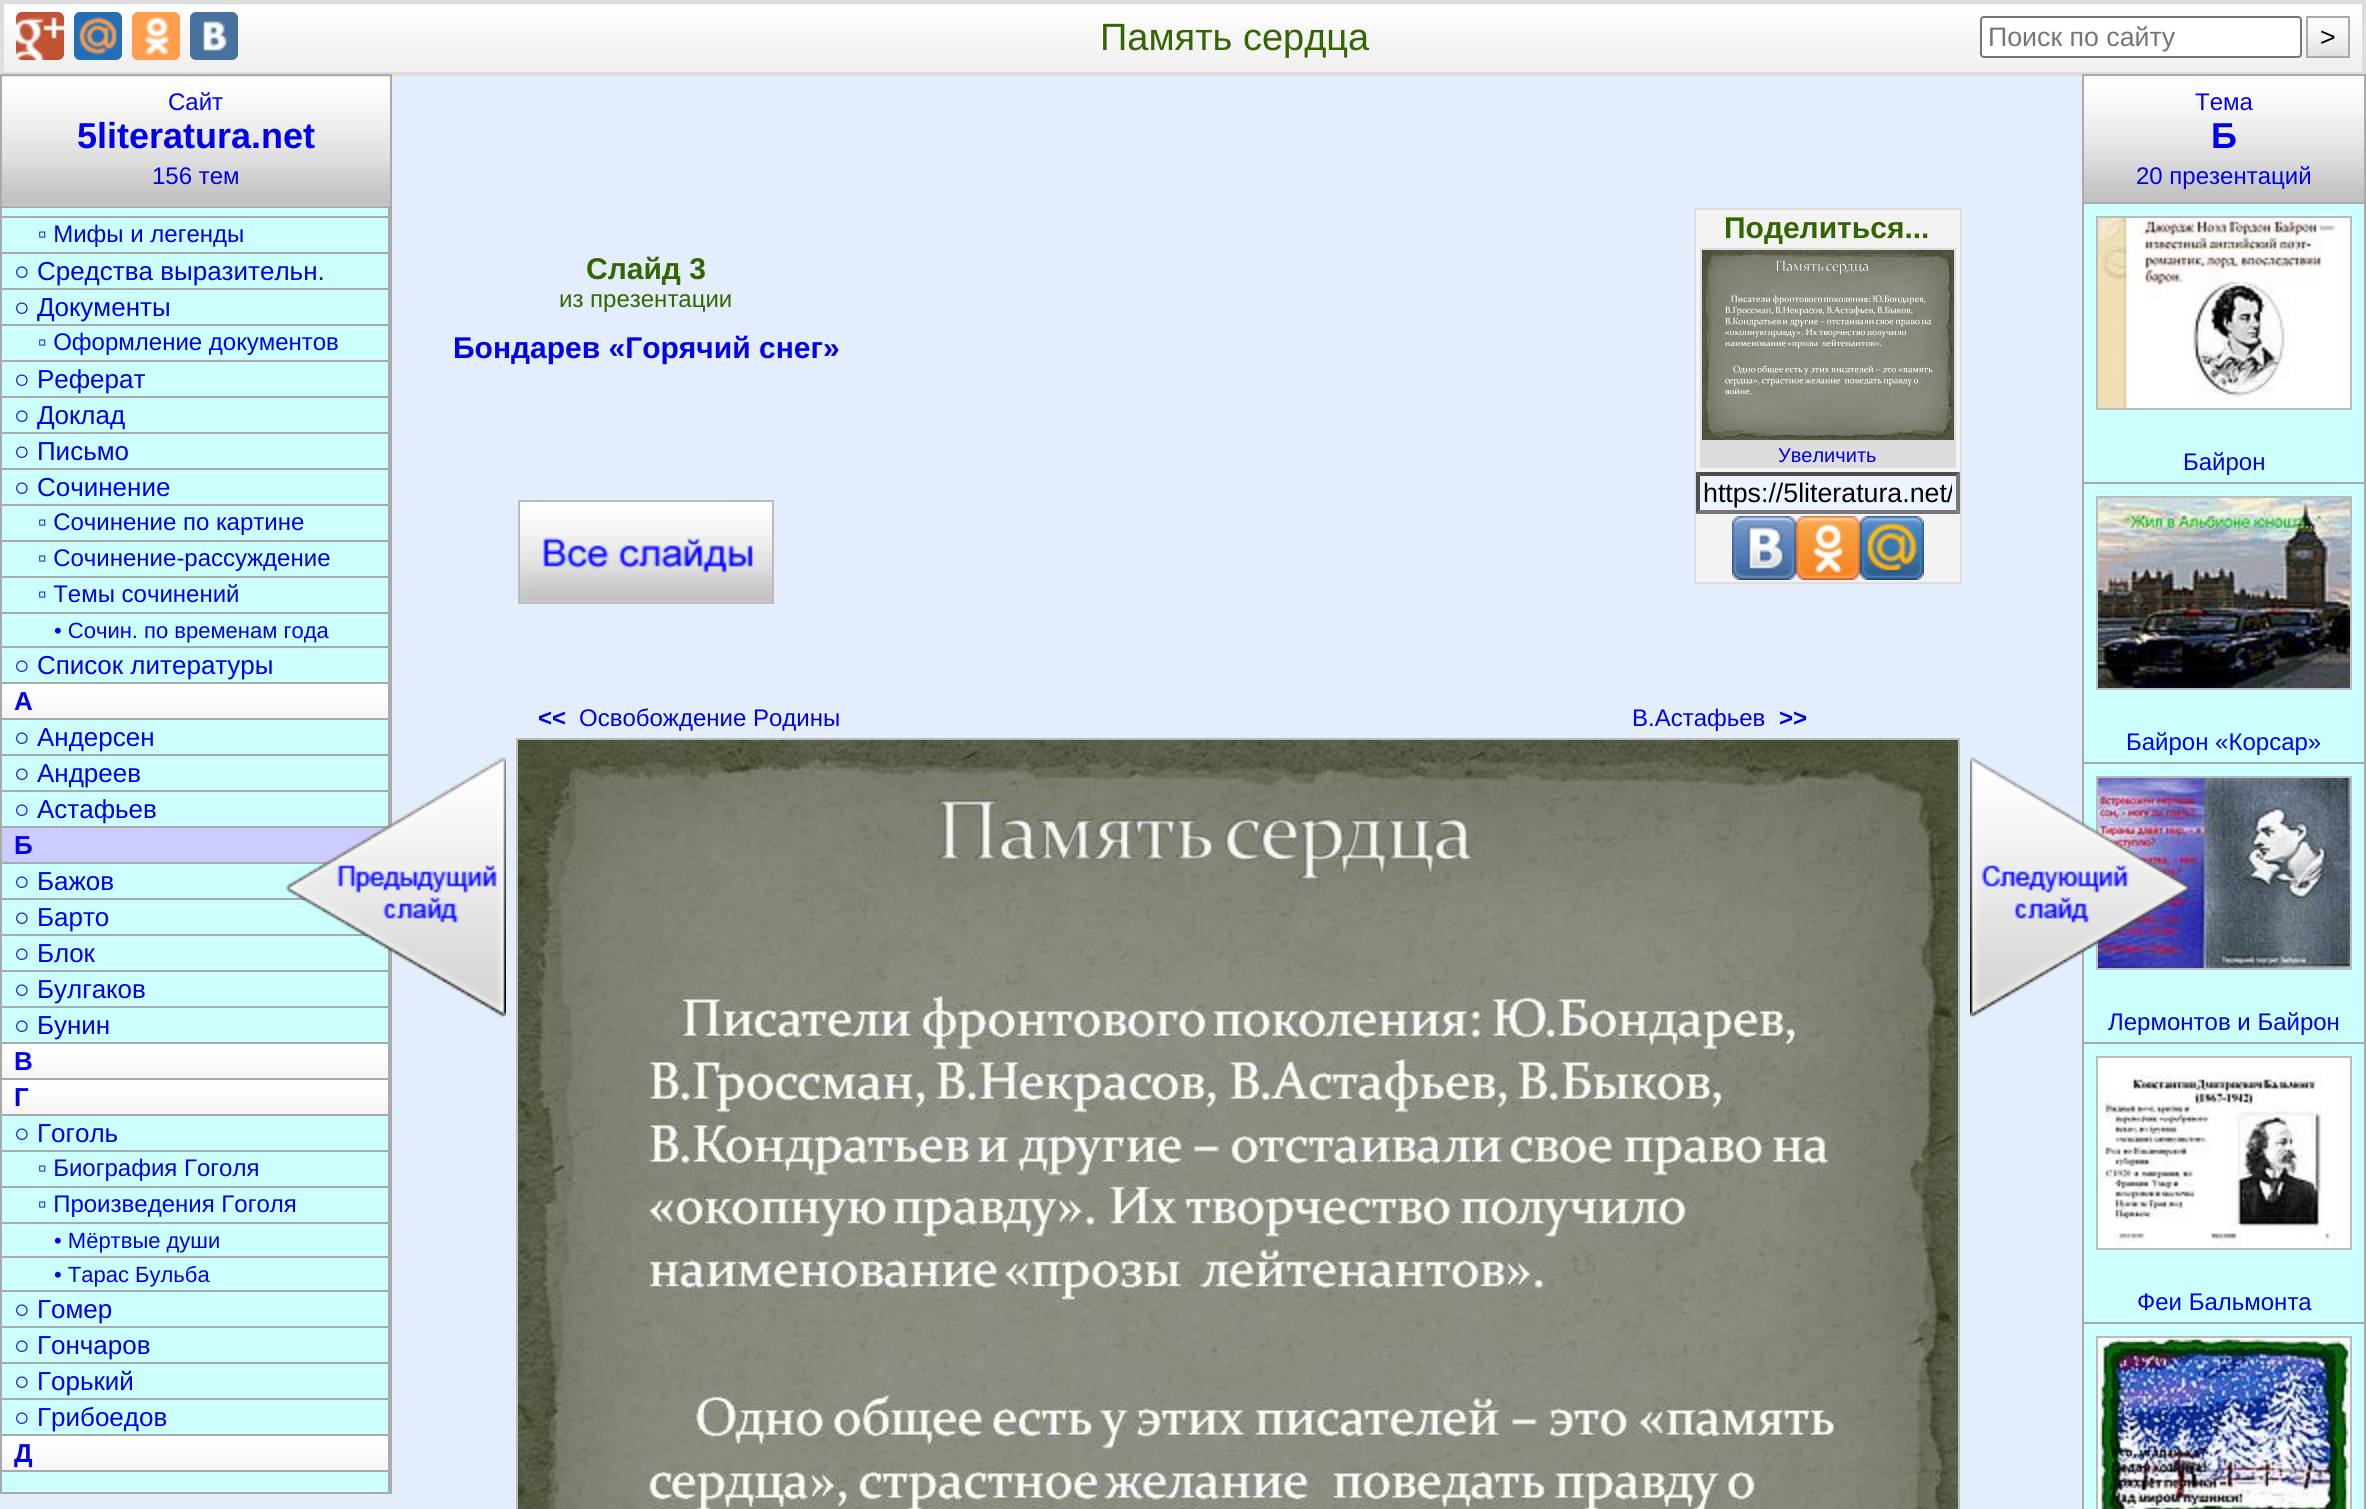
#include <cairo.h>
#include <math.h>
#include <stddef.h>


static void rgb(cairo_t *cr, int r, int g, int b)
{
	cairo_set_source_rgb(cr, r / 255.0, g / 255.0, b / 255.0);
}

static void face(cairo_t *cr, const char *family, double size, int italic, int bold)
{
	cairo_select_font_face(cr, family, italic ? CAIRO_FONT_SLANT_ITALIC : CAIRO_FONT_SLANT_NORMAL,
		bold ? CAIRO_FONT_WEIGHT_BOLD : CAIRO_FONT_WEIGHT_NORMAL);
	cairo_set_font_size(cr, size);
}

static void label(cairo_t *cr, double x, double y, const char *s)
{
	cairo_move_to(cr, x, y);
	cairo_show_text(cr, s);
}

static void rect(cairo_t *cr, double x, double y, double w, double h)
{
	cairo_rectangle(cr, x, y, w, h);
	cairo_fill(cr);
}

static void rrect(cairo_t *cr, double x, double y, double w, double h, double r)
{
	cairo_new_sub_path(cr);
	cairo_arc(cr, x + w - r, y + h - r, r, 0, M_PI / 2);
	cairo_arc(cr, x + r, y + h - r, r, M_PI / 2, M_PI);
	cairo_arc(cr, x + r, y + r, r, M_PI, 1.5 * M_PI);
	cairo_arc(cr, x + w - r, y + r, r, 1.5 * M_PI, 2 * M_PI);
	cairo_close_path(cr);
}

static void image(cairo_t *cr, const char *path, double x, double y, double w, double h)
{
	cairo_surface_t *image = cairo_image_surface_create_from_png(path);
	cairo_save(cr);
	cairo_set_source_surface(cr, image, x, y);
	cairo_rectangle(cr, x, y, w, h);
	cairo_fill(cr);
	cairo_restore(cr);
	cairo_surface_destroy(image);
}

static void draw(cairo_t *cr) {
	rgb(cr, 227, 237, 251);
	cairo_paint(cr);
	image(cr, "image0.png", 4, 4, 2358, 68);
	cairo_rectangle(cr, 2, 2, 2362, 72);
	rgb(cr, 221, 221, 221);
	cairo_set_line_width(cr, 4);
	cairo_stroke(cr);
	rgb(cr, 194, 82, 52);
	rrect(cr, 16, 12, 48, 48, 6);
	cairo_fill(cr);
	image(cr, "image1.png", 16, 17, 48, 43);
	rgb(cr, 34, 110, 183);
	rrect(cr, 74, 12, 48, 48, 6);
	cairo_fill(cr);
	image(cr, "image2.png", 79, 17, 38, 38);
	rgb(cr, 255, 159, 77);
	rrect(cr, 132, 12, 48, 48, 6);
	cairo_fill(cr);
	image(cr, "image3.png", 145, 17, 24, 38);
	rgb(cr, 72, 114, 158);
	rrect(cr, 190, 12, 48, 48, 6);
	cairo_fill(cr);
	image(cr, "image4.png", 203, 21, 24, 30);
	face(cr, "Liberation Sans", 38, 0, 0);
	rgb(cr, 51, 102, 0);
	label(cr, 1100, 50, "Память сердца");
	rgb(cr, 255, 255, 255);
	rrect(cr, 1981, 17, 320, 40, 3);
	cairo_fill_preserve(cr);
	rgb(cr, 118, 118, 118);
	cairo_set_line_width(cr, 2);
	cairo_stroke(cr);
	face(cr, "Liberation Sans", 26.75, 0, 0);
	rgb(cr, 117, 117, 117);
	label(cr, 1988, 46, "Поиск по сайту");
	image(cr, "image5.png", 2308, 37, 40, 19);
	cairo_rectangle(cr, 2307, 17, 42, 40);
	rgb(cr, 170, 170, 170);
	cairo_stroke(cr);
	rgb(cr, 0, 0, 0);
	label(cr, 2320, 46, ">");
	image(cr, "image6.png", 2, 76, 388, 130);
	cairo_rectangle(cr, 1, 75, 390, 132);
	rgb(cr, 170, 170, 170);
	cairo_stroke(cr);
	face(cr, "Liberation Sans", 24, 0, 0);
	rgb(cr, 0, 0, 238);
	label(cr, 168, 110, "Сайт");
	face(cr, "Liberation Sans", 36, 0, 1);
	label(cr, 77, 148, "5literatura.net");
	face(cr, "Liberation Sans", 24, 0, 0);
	label(cr, 152, 184, "156 тем");
	face(cr, "Liberation Sans", 30, 0, 1);
	rgb(cr, 51, 102, 0);
	label(cr, 586, 279, "Cлайд 3");
	face(cr, "Liberation Sans", 24, 0, 0);
	label(cr, 559, 307, "из презентации");
	face(cr, "Liberation Sans", 30, 0, 1);
	rgb(cr, 0, 0, 238);
	label(cr, 453, 358, "Бондарев «Горячий снег»");
	image(cr, "image7.png", 520, 502, 252, 100);
	cairo_rectangle(cr, 519, 501, 254, 102);
	rgb(cr, 187, 187, 187);
	cairo_stroke(cr);
	rgb(cr, 243, 243, 243);
	cairo_rectangle(cr, 1695, 209, 266, 374);
	cairo_fill_preserve(cr);
	rgb(cr, 221, 221, 221);
	cairo_stroke(cr);
	rgb(cr, 51, 102, 0);
	label(cr, 1724, 238, "Поделиться...");
	rgb(cr, 221, 221, 221);
	rect(cr, 1700, 248, 256, 220);
	image(cr, "image8.png", 1702, 250, 252, 190);
	face(cr, "Liberation Sans", 20, 0, 0);
	rgb(cr, 0, 0, 238);
	label(cr, 1778, 462, "Увеличить");
	rgb(cr, 238, 244, 253);
	rect(cr, 1696, 472, 264, 42);
	rgb(cr, 79, 79, 79);
	cairo_new_path(cr);
	cairo_move_to(cr, 1696, 472);
	cairo_line_to(cr, 1960, 472);
	cairo_line_to(cr, 1956, 476);
	cairo_line_to(cr, 1700, 476);
	cairo_close_path(cr);
	cairo_fill(cr);
	rgb(cr, 118, 118, 118);
	cairo_new_path(cr);
	cairo_move_to(cr, 1960, 472);
	cairo_line_to(cr, 1960, 514);
	cairo_line_to(cr, 1956, 510);
	cairo_line_to(cr, 1956, 476);
	cairo_close_path(cr);
	cairo_fill(cr);
	cairo_new_path(cr);
	cairo_move_to(cr, 1960, 514);
	cairo_line_to(cr, 1696, 514);
	cairo_line_to(cr, 1700, 510);
	cairo_line_to(cr, 1956, 510);
	cairo_close_path(cr);
	cairo_fill(cr);
	rgb(cr, 79, 79, 79);
	cairo_new_path(cr);
	cairo_move_to(cr, 1696, 514);
	cairo_line_to(cr, 1696, 472);
	cairo_line_to(cr, 1700, 476);
	cairo_line_to(cr, 1700, 510);
	cairo_close_path(cr);
	cairo_fill(cr);
	cairo_save(cr);
	cairo_rectangle(cr, 1704, 478, 248, 30);
	cairo_clip(cr);
	face(cr, "Liberation Sans", 26.75, 0, 0);
	rgb(cr, 0, 0, 0);
	label(cr, 1703, 502, "https://5literatura.net/");
	cairo_restore(cr);
	image(cr, "image9.png", 1732, 516, 64, 64);
	image(cr, "image10.png", 1796, 516, 64, 64);
	image(cr, "image11.png", 1860, 516, 64, 64);
	face(cr, "Liberation Sans", 24, 0, 1);
	rgb(cr, 0, 0, 238);
	label(cr, 538, 726, "<<");
	face(cr, "Liberation Sans", 24, 0, 0);
	label(cr, 579, 726, "Освобождение Родины");
	rgb(cr, 204, 255, 255);
	rect(cr, 2, 208, 386, 1284);
	cairo_rectangle(cr, 1, 207, 390, 1286);
	rgb(cr, 170, 170, 170);
	cairo_stroke(cr);
	rect(cr, 388, 208, 2, 620);
	rect(cr, 2, 790, 388, 2);
	rect(cr, 2, 826, 388, 2);
	rgb(cr, 204, 204, 255);
	rect(cr, 2, 828, 387, 34);
	rgb(cr, 170, 170, 170);
	rect(cr, 2, 862, 331, 2);
	rect(cr, 2, 898, 307, 2);
	rect(cr, 2, 934, 369, 2);
	rect(cr, 388, 947, 2, 545);
	rect(cr, 2, 970, 388, 2);
	rect(cr, 2, 1006, 388, 2);
	image(cr, "image12.png", 286, 757, 220, 260);
	rgb(cr, 0, 0, 238);
	label(cr, 1632, 726, "В.Астафьев");
	face(cr, "Liberation Sans", 24, 0, 1);
	label(cr, 1779, 726, ">>");
	cairo_rectangle(cr, 2083, 75, 282, 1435);
	rgb(cr, 170, 170, 170);
	cairo_stroke(cr);
	rgb(cr, 204, 255, 255);
	rect(cr, 2084, 484, 280, 278);
	rect(cr, 2084, 764, 280, 278);
	rgb(cr, 170, 170, 170);
	rect(cr, 2084, 762, 280, 2);
	cairo_rectangle(cr, 2097, 777, 254, 192);
	rgb(cr, 187, 187, 187);
	cairo_stroke(cr);
	image(cr, "image18.png", 2098, 778, 252, 190);
	face(cr, "Liberation Sans", 24, 0, 0);
	rgb(cr, 0, 0, 238);
	label(cr, 2108, 1030, "Лермонтов и Байрон");
	image(cr, "image13.png", 1970, 757, 220, 260);
	cairo_rectangle(cr, 517, 739, 1442, 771);
	rgb(cr, 187, 187, 187);
	cairo_stroke(cr);
	image(cr, "image14.png", 518, 740, 1440, 769);
	image(cr, "image15.png", 2084, 76, 280, 126);
	rgb(cr, 0, 0, 238);
	label(cr, 2195, 110, "Тема");
	face(cr, "Liberation Sans", 36, 0, 1);
	label(cr, 2211, 148, "Б");
	face(cr, "Liberation Sans", 24, 0, 0);
	label(cr, 2136, 184, "20 презентаций");
	rgb(cr, 204, 255, 255);
	rect(cr, 2084, 204, 280, 278);
	rgb(cr, 170, 170, 170);
	rect(cr, 2084, 202, 280, 2);
	cairo_rectangle(cr, 2097, 217, 254, 192);
	rgb(cr, 187, 187, 187);
	cairo_stroke(cr);
	image(cr, "image16.png", 2098, 218, 252, 190);
	rgb(cr, 0, 0, 238);
	label(cr, 2183, 470, "Байрон");
	rgb(cr, 170, 170, 170);
	rect(cr, 2084, 482, 280, 2);
	cairo_rectangle(cr, 2097, 497, 254, 192);
	rgb(cr, 187, 187, 187);
	cairo_stroke(cr);
	image(cr, "image17.png", 2098, 498, 252, 190);
	rgb(cr, 0, 0, 238);
	label(cr, 2126, 750, "Байрон «Корсар»");
	rgb(cr, 204, 255, 255);
	rect(cr, 2084, 1044, 280, 278);
	rgb(cr, 170, 170, 170);
	rect(cr, 2084, 1042, 280, 2);
	cairo_rectangle(cr, 2097, 1057, 254, 192);
	rgb(cr, 187, 187, 187);
	cairo_stroke(cr);
	image(cr, "image19.png", 2098, 1058, 252, 190);
	rgb(cr, 0, 0, 238);
	label(cr, 2137, 1310, "Феи Бальмонта");
	rgb(cr, 204, 255, 255);
	rect(cr, 2084, 1324, 280, 185);
	rgb(cr, 170, 170, 170);
	rect(cr, 2084, 1322, 280, 2);
	cairo_rectangle(cr, 2097, 1337, 254, 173);
	rgb(cr, 187, 187, 187);
	cairo_stroke(cr);
	image(cr, "image20.png", 2098, 1338, 252, 171);
	rgb(cr, 170, 170, 170);
	rect(cr, 2, 216, 388, 2);
	rect(cr, 2, 252, 388, 2);
	rgb(cr, 0, 0, 238);
	label(cr, 38, 242, "▫ Мифы и легенды");
	rgb(cr, 170, 170, 170);
	rect(cr, 2, 288, 388, 2);
	face(cr, "Liberation Sans", 26, 0, 0);
	rgb(cr, 0, 0, 238);
	label(cr, 14, 280, "○ Средства выразительн.");
	rgb(cr, 170, 170, 170);
	rect(cr, 2, 324, 388, 2);
	rgb(cr, 0, 0, 238);
	label(cr, 14, 316, "○ Документы");
	rgb(cr, 170, 170, 170);
	rect(cr, 2, 360, 388, 2);
	face(cr, "Liberation Sans", 24, 0, 0);
	rgb(cr, 0, 0, 238);
	label(cr, 38, 350, "▫ Оформление документов");
	rgb(cr, 170, 170, 170);
	rect(cr, 2, 396, 388, 2);
	face(cr, "Liberation Sans", 26, 0, 0);
	rgb(cr, 0, 0, 238);
	label(cr, 14, 388, "○ Реферат");
	rgb(cr, 170, 170, 170);
	rect(cr, 2, 432, 388, 2);
	rgb(cr, 0, 0, 238);
	label(cr, 14, 424, "○ Доклад");
	rgb(cr, 170, 170, 170);
	rect(cr, 2, 468, 388, 2);
	rgb(cr, 0, 0, 238);
	label(cr, 14, 460, "○ Письмо");
	rgb(cr, 170, 170, 170);
	rect(cr, 2, 504, 388, 2);
	rgb(cr, 0, 0, 238);
	label(cr, 14, 496, "○ Сочинение");
	rgb(cr, 170, 170, 170);
	rect(cr, 2, 540, 388, 2);
	face(cr, "Liberation Sans", 24, 0, 0);
	rgb(cr, 0, 0, 238);
	label(cr, 38, 530, "▫ Сочинение по картине");
	rgb(cr, 170, 170, 170);
	rect(cr, 2, 576, 388, 2);
	rgb(cr, 0, 0, 238);
	label(cr, 38, 566, "▫ Сочинение-рассуждение");
	rgb(cr, 170, 170, 170);
	rect(cr, 2, 612, 388, 2);
	rgb(cr, 0, 0, 238);
	label(cr, 38, 602, "▫ Темы сочинений");
	rgb(cr, 170, 170, 170);
	rect(cr, 2, 646, 388, 2);
	face(cr, "Liberation Sans", 22, 0, 0);
	rgb(cr, 0, 0, 238);
	label(cr, 54, 638, "• Сочин. по временам года");
	rgb(cr, 170, 170, 170);
	rect(cr, 2, 682, 388, 2);
	face(cr, "Liberation Sans", 26, 0, 0);
	rgb(cr, 0, 0, 238);
	label(cr, 14, 674, "○ Список литературы");
	image(cr, "image21.png", 2, 684, 386, 34);
	rgb(cr, 170, 170, 170);
	rect(cr, 2, 718, 388, 2);
	face(cr, "Liberation Sans", 26, 0, 1);
	rgb(cr, 0, 0, 238);
	label(cr, 14, 710, "А");
	rgb(cr, 170, 170, 170);
	rect(cr, 2, 754, 388, 2);
	face(cr, "Liberation Sans", 26, 0, 0);
	rgb(cr, 0, 0, 238);
	label(cr, 14, 746, "○ Андерсен");
	label(cr, 14, 782, "○ Андреев");
	label(cr, 14, 818, "○ Астафьев");
	face(cr, "Liberation Sans", 26, 0, 1);
	label(cr, 14, 854, "Б");
	face(cr, "Liberation Sans", 26, 0, 0);
	label(cr, 14, 890, "○ Бажов");
	label(cr, 14, 926, "○ Барто");
	label(cr, 14, 962, "○ Блок");
	label(cr, 14, 998, "○ Булгаков");
	rgb(cr, 170, 170, 170);
	rect(cr, 2, 1042, 388, 2);
	rgb(cr, 0, 0, 238);
	label(cr, 14, 1034, "○ Бунин");
	image(cr, "image21.png", 2, 1044, 386, 34);
	rgb(cr, 170, 170, 170);
	rect(cr, 2, 1078, 388, 2);
	face(cr, "Liberation Sans", 26, 0, 1);
	rgb(cr, 0, 0, 238);
	label(cr, 14, 1070, "В");
	image(cr, "image21.png", 2, 1080, 386, 34);
	rgb(cr, 170, 170, 170);
	rect(cr, 2, 1114, 388, 2);
	rgb(cr, 0, 0, 238);
	label(cr, 14, 1106, "Г");
	rgb(cr, 170, 170, 170);
	rect(cr, 2, 1150, 388, 2);
	face(cr, "Liberation Sans", 26, 0, 0);
	rgb(cr, 0, 0, 238);
	label(cr, 14, 1142, "○ Гоголь");
	rgb(cr, 170, 170, 170);
	rect(cr, 2, 1186, 388, 2);
	face(cr, "Liberation Sans", 24, 0, 0);
	rgb(cr, 0, 0, 238);
	label(cr, 38, 1176, "▫ Биография Гоголя");
	rgb(cr, 170, 170, 170);
	rect(cr, 2, 1222, 388, 2);
	rgb(cr, 0, 0, 238);
	label(cr, 38, 1212, "▫ Произведения Гоголя");
	rgb(cr, 170, 170, 170);
	rect(cr, 2, 1256, 388, 2);
	face(cr, "Liberation Sans", 22, 0, 0);
	rgb(cr, 0, 0, 238);
	label(cr, 54, 1248, "• Мёртвые души");
	rgb(cr, 170, 170, 170);
	rect(cr, 2, 1290, 388, 2);
	rgb(cr, 0, 0, 238);
	label(cr, 54, 1282, "• Тарас Бульба");
	rgb(cr, 170, 170, 170);
	rect(cr, 2, 1326, 388, 2);
	face(cr, "Liberation Sans", 26, 0, 0);
	rgb(cr, 0, 0, 238);
	label(cr, 14, 1318, "○ Гомер");
	rgb(cr, 170, 170, 170);
	rect(cr, 2, 1362, 388, 2);
	rgb(cr, 0, 0, 238);
	label(cr, 14, 1354, "○ Гончаров");
	rgb(cr, 170, 170, 170);
	rect(cr, 2, 1398, 388, 2);
	rgb(cr, 0, 0, 238);
	label(cr, 14, 1390, "○ Горький");
	rgb(cr, 170, 170, 170);
	rect(cr, 2, 1434, 388, 2);
	rgb(cr, 0, 0, 238);
	label(cr, 14, 1426, "○ Грибоедов");
	image(cr, "image21.png", 2, 1436, 386, 34);
	rgb(cr, 170, 170, 170);
	rect(cr, 2, 1470, 388, 2);
	face(cr, "Liberation Sans", 26, 0, 1);
	rgb(cr, 0, 0, 238);
	label(cr, 14, 1462, "Д");
}

int main(void) {
	cairo_surface_t *surface = cairo_image_surface_create(CAIRO_FORMAT_RGB24, 2366, 1509);
	cairo_t *cr = cairo_create(surface);
	cairo_font_options_t *options = cairo_font_options_create();
	cairo_font_options_set_hint_metrics(options, CAIRO_HINT_METRICS_OFF);
	cairo_font_options_set_hint_style(options, CAIRO_HINT_STYLE_NONE);
	cairo_set_font_options(cr, options);
	cairo_set_miter_limit(cr, 4);
	draw(cr);
	cairo_surface_write_to_png(surface, "render.png");
	cairo_font_options_destroy(options);
	cairo_destroy(cr);
	cairo_surface_destroy(surface);
	return 0;
}
